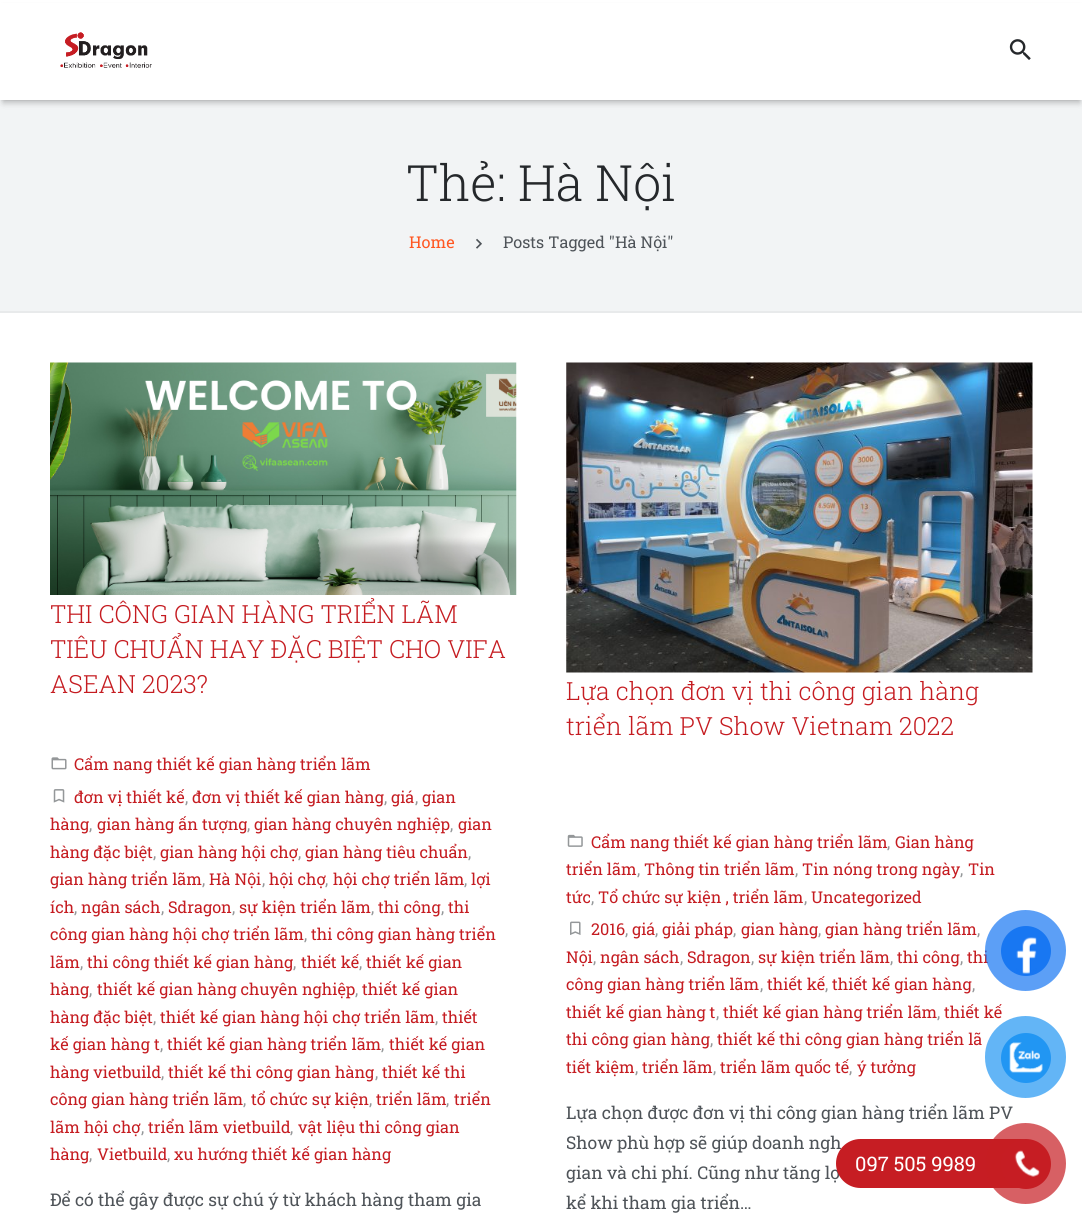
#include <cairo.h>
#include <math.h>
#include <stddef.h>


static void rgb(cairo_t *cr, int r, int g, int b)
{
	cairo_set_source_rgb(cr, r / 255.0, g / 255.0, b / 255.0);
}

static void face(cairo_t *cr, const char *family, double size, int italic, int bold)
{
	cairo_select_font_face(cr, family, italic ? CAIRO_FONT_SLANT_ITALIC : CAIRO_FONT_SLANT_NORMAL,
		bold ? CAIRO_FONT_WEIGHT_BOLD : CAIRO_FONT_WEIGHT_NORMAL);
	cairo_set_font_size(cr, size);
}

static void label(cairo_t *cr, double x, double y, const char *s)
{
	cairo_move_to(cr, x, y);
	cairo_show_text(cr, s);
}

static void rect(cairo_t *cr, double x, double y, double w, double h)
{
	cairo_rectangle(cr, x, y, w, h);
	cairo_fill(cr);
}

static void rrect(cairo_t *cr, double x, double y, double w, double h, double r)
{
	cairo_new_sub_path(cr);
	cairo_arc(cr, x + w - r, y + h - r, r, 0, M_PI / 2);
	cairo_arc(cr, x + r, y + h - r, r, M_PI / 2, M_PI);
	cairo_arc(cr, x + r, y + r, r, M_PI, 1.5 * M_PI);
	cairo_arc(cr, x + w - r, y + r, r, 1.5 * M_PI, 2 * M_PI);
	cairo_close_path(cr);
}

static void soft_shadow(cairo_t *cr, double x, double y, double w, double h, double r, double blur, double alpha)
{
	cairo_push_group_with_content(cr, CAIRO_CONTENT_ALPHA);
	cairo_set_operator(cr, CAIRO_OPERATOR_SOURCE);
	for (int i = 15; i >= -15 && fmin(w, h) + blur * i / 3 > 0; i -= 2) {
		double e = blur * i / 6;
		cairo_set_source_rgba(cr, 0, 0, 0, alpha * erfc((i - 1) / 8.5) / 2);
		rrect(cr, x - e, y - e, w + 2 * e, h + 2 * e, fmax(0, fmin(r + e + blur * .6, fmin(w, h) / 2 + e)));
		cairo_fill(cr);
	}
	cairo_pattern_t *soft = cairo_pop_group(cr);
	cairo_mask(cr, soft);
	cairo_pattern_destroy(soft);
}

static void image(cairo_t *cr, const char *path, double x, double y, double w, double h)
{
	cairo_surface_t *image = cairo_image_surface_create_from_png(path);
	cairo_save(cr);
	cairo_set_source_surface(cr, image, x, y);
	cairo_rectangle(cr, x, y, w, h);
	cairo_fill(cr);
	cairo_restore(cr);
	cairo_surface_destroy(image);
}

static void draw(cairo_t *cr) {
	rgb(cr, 255, 255, 255);
	cairo_paint(cr);
	rgb(cr, 242, 244, 245);
	rect(cr, 0, 100, 1082, 211);
	rgb(cr, 0, 0, 0);
	soft_shadow(cr, 1, 4, 1080, 97, 0, 0.5, 0.05);
	soft_shadow(cr, 3, 8, 1077, 95, 0, 3, 0.22);
	rgb(cr, 255, 255, 255);
	rect(cr, 0, 3, 1082, 97);
	image(cr, "image0.png", 60, 32, 92, 36);
	image(cr, "image1.png", 1009, 39, 22, 21);
	cairo_save(cr);
	cairo_rectangle(cr, 0, 0, 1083, 313);
	cairo_clip(cr);
	rgb(cr, 232, 234, 235);
	cairo_set_fill_rule(cr, CAIRO_FILL_RULE_EVEN_ODD);
	cairo_new_path(cr);
	cairo_move_to(cr, -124, -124);
	cairo_line_to(cr, 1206, -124);
	cairo_line_to(cr, 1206, 436);
	cairo_line_to(cr, -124, 436);
	cairo_close_path(cr);
	cairo_move_to(cr, 0, -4);
	cairo_line_to(cr, 1082, -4);
	cairo_curve_to(cr, 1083, -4, 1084, -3, 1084, -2);
	cairo_line_to(cr, 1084, 310);
	cairo_curve_to(cr, 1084, 311, 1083, 311, 1082, 311);
	cairo_line_to(cr, 0, 311);
	cairo_curve_to(cr, -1, 311, -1, 311, -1, 310);
	cairo_line_to(cr, -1, -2);
	cairo_curve_to(cr, -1, -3, -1, -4, 0, -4);
	cairo_close_path(cr);
	cairo_fill(cr);
	cairo_restore(cr);
	face(cr, "Roboto Slab Light", 50, 0, 0);
	rgb(cr, 37, 40, 43);
	label(cr, 406, 201, "Thẻ: Hà Nội");
	face(cr, "Roboto Slab", 16.25, 0, 0);
	rgb(cr, 255, 87, 34);
	label(cr, 409, 248, "Home");
	image(cr, "image2.png", 476, 238, 6, 11);
	rgb(cr, 79, 84, 89);
	label(cr, 503, 248, "Posts Tagged \"Hà Nội\"");
	image(cr, "image3.png", 50, 362, 467, 233);
	face(cr, "Roboto Slab Light", 25, 0, 0);
	rgb(cr, 197, 28, 33);
	label(cr, 50, 623, "THI CÔNG GIAN HÀNG TRIỂN LÃM");
	label(cr, 50, 658, "TIÊU CHUẨN HAY ĐẶC BIỆT CHO VIFA");
	label(cr, 50, 693, "ASEAN 2023?");
	image(cr, "image4.png", 51, 757, 16, 13);
	face(cr, "Roboto Slab", 16.25, 0, 0);
	label(cr, 74, 770, "Cẩm nang thiết kế gian hàng triển lãm");
	image(cr, "image5.png", 53, 789, 12, 14);
	label(cr, 74, 803, "đơn vị thiết kế");
	rgb(cr, 148, 151, 153);
	label(cr, 185, 803, ",");
	rgb(cr, 197, 28, 33);
	label(cr, 192, 803, "đơn vị thiết kế gian hàng");
	rgb(cr, 148, 151, 153);
	label(cr, 384, 803, ",");
	rgb(cr, 197, 28, 33);
	label(cr, 391, 803, "giá");
	rgb(cr, 148, 151, 153);
	label(cr, 415, 803, ",");
	rgb(cr, 197, 28, 33);
	label(cr, 422, 803, "gian");
	label(cr, 50, 830, "hàng");
	rgb(cr, 148, 151, 153);
	label(cr, 89, 830, ",");
	rgb(cr, 197, 28, 33);
	label(cr, 97, 830, "gian hàng ấn tượng");
	rgb(cr, 148, 151, 153);
	label(cr, 247, 830, ",");
	rgb(cr, 197, 28, 33);
	label(cr, 254, 830, "gian hàng chuyên nghiệp");
	rgb(cr, 148, 151, 153);
	label(cr, 450, 830, ",");
	rgb(cr, 197, 28, 33);
	label(cr, 458, 830, "gian");
	label(cr, 50, 858, "hàng đặc biệt");
	rgb(cr, 148, 151, 153);
	label(cr, 153, 858, ",");
	rgb(cr, 197, 28, 33);
	label(cr, 160, 858, "gian hàng hội chợ");
	rgb(cr, 148, 151, 153);
	label(cr, 298, 858, ",");
	rgb(cr, 197, 28, 33);
	label(cr, 305, 858, "gian hàng tiêu chuẩn");
	rgb(cr, 148, 151, 153);
	label(cr, 468, 858, ",");
	rgb(cr, 197, 28, 33);
	label(cr, 50, 885, "gian hàng triển lãm");
	rgb(cr, 148, 151, 153);
	label(cr, 202, 885, ",");
	rgb(cr, 197, 28, 33);
	label(cr, 209, 885, "Hà Nội");
	rgb(cr, 148, 151, 153);
	label(cr, 262, 885, ",");
	rgb(cr, 197, 28, 33);
	label(cr, 269, 885, "hội chợ");
	rgb(cr, 148, 151, 153);
	label(cr, 325, 885, ",");
	rgb(cr, 197, 28, 33);
	label(cr, 333, 885, "hội chợ triển lãm");
	rgb(cr, 148, 151, 153);
	label(cr, 464, 885, ",");
	rgb(cr, 197, 28, 33);
	label(cr, 471, 885, "lợi");
	label(cr, 50, 913, "ích");
	rgb(cr, 148, 151, 153);
	label(cr, 74, 913, ",");
	rgb(cr, 197, 28, 33);
	label(cr, 81, 913, "ngân sách");
	rgb(cr, 148, 151, 153);
	label(cr, 161, 913, ",");
	rgb(cr, 197, 28, 33);
	label(cr, 168, 913, "Sdragon");
	rgb(cr, 148, 151, 153);
	label(cr, 232, 913, ",");
	rgb(cr, 197, 28, 33);
	label(cr, 239, 913, "sự kiện triển lãm");
	rgb(cr, 148, 151, 153);
	label(cr, 371, 913, ",");
	rgb(cr, 197, 28, 33);
	label(cr, 378, 913, "thi công");
	rgb(cr, 148, 151, 153);
	label(cr, 441, 913, ",");
	rgb(cr, 197, 28, 33);
	label(cr, 448, 913, "thi");
	label(cr, 50, 940, "công gian hàng hội chợ triển lãm");
	rgb(cr, 148, 151, 153);
	label(cr, 304, 940, ",");
	rgb(cr, 197, 28, 33);
	label(cr, 311, 940, "thi công gian hàng triển");
	label(cr, 50, 968, "lãm");
	rgb(cr, 148, 151, 153);
	label(cr, 80, 968, ",");
	rgb(cr, 197, 28, 33);
	label(cr, 87, 968, "thi công thiết kế gian hàng");
	rgb(cr, 148, 151, 153);
	label(cr, 293, 968, ",");
	rgb(cr, 197, 28, 33);
	label(cr, 301, 968, "thiết kế");
	rgb(cr, 148, 151, 153);
	label(cr, 359, 968, ",");
	rgb(cr, 197, 28, 33);
	label(cr, 366, 968, "thiết kế gian");
	label(cr, 50, 995, "hàng");
	rgb(cr, 148, 151, 153);
	label(cr, 89, 995, ",");
	rgb(cr, 197, 28, 33);
	label(cr, 97, 995, "thiết kế gian hàng chuyên nghiệp");
	rgb(cr, 148, 151, 153);
	label(cr, 355, 995, ",");
	rgb(cr, 197, 28, 33);
	label(cr, 362, 995, "thiết kế gian");
	label(cr, 50, 1023, "hàng đặc biệt");
	rgb(cr, 148, 151, 153);
	label(cr, 153, 1023, ",");
	rgb(cr, 197, 28, 33);
	label(cr, 160, 1023, "thiết kế gian hàng hội chợ triển lãm");
	rgb(cr, 148, 151, 153);
	label(cr, 435, 1023, ",");
	rgb(cr, 197, 28, 33);
	label(cr, 442, 1023, "thiết");
	label(cr, 50, 1050, "kế gian hàng t");
	rgb(cr, 148, 151, 153);
	label(cr, 160, 1050, ",");
	rgb(cr, 197, 28, 33);
	label(cr, 167, 1050, "thiết kế gian hàng triển lãm");
	rgb(cr, 148, 151, 153);
	label(cr, 381, 1050, ",");
	rgb(cr, 197, 28, 33);
	label(cr, 389, 1050, "thiết kế gian");
	label(cr, 50, 1078, "hàng vietbuild");
	rgb(cr, 148, 151, 153);
	label(cr, 161, 1078, ",");
	rgb(cr, 197, 28, 33);
	label(cr, 168, 1078, "thiết kế thi công gian hàng");
	rgb(cr, 148, 151, 153);
	label(cr, 375, 1078, ",");
	rgb(cr, 197, 28, 33);
	label(cr, 382, 1078, "thiết kế thi");
	label(cr, 50, 1105, "công gian hàng triển lãm");
	rgb(cr, 148, 151, 153);
	label(cr, 243, 1105, ",");
	rgb(cr, 197, 28, 33);
	label(cr, 251, 1105, "tổ chức sự kiện");
	rgb(cr, 148, 151, 153);
	label(cr, 369, 1105, ",");
	rgb(cr, 197, 28, 33);
	label(cr, 376, 1105, "triển lãm");
	rgb(cr, 148, 151, 153);
	label(cr, 446, 1105, ",");
	rgb(cr, 197, 28, 33);
	label(cr, 454, 1105, "triển");
	label(cr, 50, 1133, "lãm hội chợ");
	rgb(cr, 148, 151, 153);
	label(cr, 141, 1133, ",");
	rgb(cr, 197, 28, 33);
	label(cr, 148, 1133, "triển lãm vietbuild");
	rgb(cr, 148, 151, 153);
	label(cr, 290, 1133, ",");
	rgb(cr, 197, 28, 33);
	label(cr, 298, 1133, "vật liệu thi công gian");
	label(cr, 50, 1160, "hàng");
	rgb(cr, 148, 151, 153);
	label(cr, 89, 1160, ",");
	rgb(cr, 197, 28, 33);
	label(cr, 97, 1160, "Vietbuild");
	rgb(cr, 148, 151, 153);
	label(cr, 167, 1160, ",");
	rgb(cr, 197, 28, 33);
	label(cr, 174, 1160, "xu hướng thiết kế gian hàng");
	face(cr, "Roboto Slab", 17.5, 0, 0);
	rgb(cr, 79, 84, 89);
	label(cr, 50, 1206, "Để có thể gây được sự chú ý từ khách hàng tham gia");
	image(cr, "image6.png", 566, 362, 467, 311);
	face(cr, "Roboto Slab Light", 25, 0, 0);
	rgb(cr, 197, 28, 33);
	label(cr, 566, 700, "Lựa chọn đơn vị thi công gian hàng");
	label(cr, 566, 735, "triển lãm PV Show Vietnam 2022");
	image(cr, "image7.png", 567, 834, 16, 13);
	face(cr, "Roboto Slab", 16.25, 0, 0);
	label(cr, 591, 848, "Cẩm nang thiết kế gian hàng triển lãm");
	rgb(cr, 148, 151, 153);
	label(cr, 887, 848, ",");
	rgb(cr, 197, 28, 33);
	label(cr, 895, 848, "Gian hàng");
	label(cr, 566, 875, "triển lãm");
	label(cr, 644, 875, "Thông tin triển lãm");
	label(cr, 802, 875, "Tin nóng trong ngày");
	label(cr, 968, 875, "Tin");
	rgb(cr, 148, 151, 153);
	label(cr, 637, 875, ",");
	label(cr, 795, 875, ",");
	label(cr, 960, 875, ",");
	rgb(cr, 197, 28, 33);
	label(cr, 566, 903, "tức");
	rgb(cr, 148, 151, 153);
	label(cr, 591, 903, ",");
	rgb(cr, 197, 28, 33);
	label(cr, 598, 903, "Tổ chức sự kiện , triển lãm");
	rgb(cr, 148, 151, 153);
	label(cr, 804, 903, ",");
	rgb(cr, 197, 28, 33);
	label(cr, 811, 903, "Uncategorized");
	image(cr, "image8.png", 570, 921, 11, 14);
	label(cr, 591, 935, "2016");
	rgb(cr, 148, 151, 153);
	label(cr, 625, 935, ",");
	rgb(cr, 197, 28, 33);
	label(cr, 632, 935, "giá");
	rgb(cr, 148, 151, 153);
	label(cr, 655, 935, ",");
	rgb(cr, 197, 28, 33);
	label(cr, 662, 935, "giải pháp");
	rgb(cr, 148, 151, 153);
	label(cr, 733, 935, ",");
	rgb(cr, 197, 28, 33);
	label(cr, 741, 935, "gian hàng");
	rgb(cr, 148, 151, 153);
	label(cr, 818, 935, ",");
	rgb(cr, 197, 28, 33);
	label(cr, 825, 935, "gian hàng triển lãm");
	rgb(cr, 148, 151, 153);
	label(cr, 977, 935, ",");
	rgb(cr, 197, 28, 33);
	label(cr, 566, 963, "Nội");
	rgb(cr, 148, 151, 153);
	label(cr, 593, 963, ",");
	rgb(cr, 197, 28, 33);
	label(cr, 600, 963, "ngân sách");
	rgb(cr, 148, 151, 153);
	label(cr, 680, 963, ",");
	rgb(cr, 197, 28, 33);
	label(cr, 687, 963, "Sdragon");
	rgb(cr, 148, 151, 153);
	label(cr, 751, 963, ",");
	rgb(cr, 197, 28, 33);
	label(cr, 758, 963, "sự kiện triển lãm");
	rgb(cr, 148, 151, 153);
	label(cr, 890, 963, ",");
	rgb(cr, 197, 28, 33);
	label(cr, 897, 963, "thi công");
	rgb(cr, 148, 151, 153);
	label(cr, 960, 963, ",");
	rgb(cr, 197, 28, 33);
	label(cr, 967, 963, "thi");
	label(cr, 566, 990, "công gian hàng triển lãm");
	rgb(cr, 148, 151, 153);
	label(cr, 760, 990, ",");
	rgb(cr, 197, 28, 33);
	label(cr, 767, 990, "thiết kế");
	rgb(cr, 148, 151, 153);
	label(cr, 825, 990, ",");
	rgb(cr, 197, 28, 33);
	label(cr, 832, 990, "thiết kế gian hàng");
	rgb(cr, 148, 151, 153);
	label(cr, 972, 990, ",");
	rgb(cr, 197, 28, 33);
	label(cr, 566, 1018, "thiết kế gian hàng t");
	rgb(cr, 148, 151, 153);
	label(cr, 716, 1018, ",");
	rgb(cr, 197, 28, 33);
	label(cr, 723, 1018, "thiết kế gian hàng triển lãm");
	rgb(cr, 148, 151, 153);
	label(cr, 937, 1018, ",");
	rgb(cr, 197, 28, 33);
	label(cr, 944, 1018, "thiết kế");
	label(cr, 566, 1045, "thi công gian hàng");
	rgb(cr, 148, 151, 153);
	label(cr, 710, 1045, ",");
	rgb(cr, 197, 28, 33);
	label(cr, 717, 1045, "thiết kế thi công gian hàng triển lã");
	label(cr, 566, 1073, "tiết kiệm");
	rgb(cr, 148, 151, 153);
	label(cr, 635, 1073, ",");
	rgb(cr, 197, 28, 33);
	label(cr, 642, 1073, "triển lãm");
	rgb(cr, 148, 151, 153);
	label(cr, 713, 1073, ",");
	rgb(cr, 197, 28, 33);
	label(cr, 720, 1073, "triển lãm quốc tế");
	rgb(cr, 148, 151, 153);
	label(cr, 849, 1073, ",");
	rgb(cr, 197, 28, 33);
	label(cr, 857, 1073, "ý tưởng");
	face(cr, "Roboto Slab", 17.5, 0, 0);
	rgb(cr, 79, 84, 89);
	label(cr, 566, 1119, "Lựa chọn được đơn vị thi công gian hàng triển lãm PV");
	label(cr, 566, 1149, "Show phù hợp sẽ giúp doanh ngh");
	label(cr, 566, 1179, "gian và chi phí. Cũng như tăng lợ");
	label(cr, 566, 1209, "kể khi tham gia triển…");
	cairo_set_source_rgba(cr, 0.094, 0.467, 0.949, 0.7);
	cairo_new_path(cr);
	cairo_arc(cr, 1025.5, 950.5, 40.5, 0, 2 * M_PI);
	cairo_fill(cr);
	rgb(cr, 24, 119, 242);
	cairo_arc(cr, 1026, 951, 25, 0, 2 * M_PI);
	cairo_fill(cr);
	image(cr, "image9.png", 1016, 937, 21, 37);
	cairo_set_source_rgba(cr, 0.129, 0.588, 0.953, 0.7);
	rrect(cr, 985, 1016, 81, 82, 40.5);
	cairo_fill(cr);
	rgb(cr, 33, 150, 243);
	cairo_arc(cr, 1026, 1058, 25, 0, 2 * M_PI);
	cairo_fill(cr);
	image(cr, "image10.png", 1009, 1042, 34, 31);
	rgb(cr, 198, 29, 35);
	rrect(cr, 836, 1139, 209, 49, 24.5);
	cairo_fill(cr);
	face(cr, "Roboto Slab", 20, 0, 0);
	rgb(cr, 255, 255, 255);
	label(cr, 855, 1171, "097 505 9989");
	cairo_set_source_rgba(cr, 0.776, 0.114, 0.137, 0.7);
	cairo_new_path(cr);
	cairo_arc(cr, 1025.5, 1163.5, 40.5, 0, 2 * M_PI);
	cairo_fill(cr);
	rgb(cr, 198, 29, 35);
	cairo_arc(cr, 1026, 1164, 25, 0, 2 * M_PI);
	cairo_fill(cr);
	image(cr, "image11.png", 1014, 1150, 26, 27);
}

int main(void) {
	cairo_surface_t *surface = cairo_image_surface_create(CAIRO_FORMAT_RGB24, 1082, 1220);
	cairo_t *cr = cairo_create(surface);
	cairo_font_options_t *options = cairo_font_options_create();
	cairo_font_options_set_hint_metrics(options, CAIRO_HINT_METRICS_OFF);
	cairo_font_options_set_hint_style(options, CAIRO_HINT_STYLE_NONE);
	cairo_set_font_options(cr, options);
	cairo_set_miter_limit(cr, 4);
	draw(cr);
	cairo_surface_write_to_png(surface, "render.png");
	cairo_font_options_destroy(options);
	cairo_destroy(cr);
	cairo_surface_destroy(surface);
	return 0;
}
